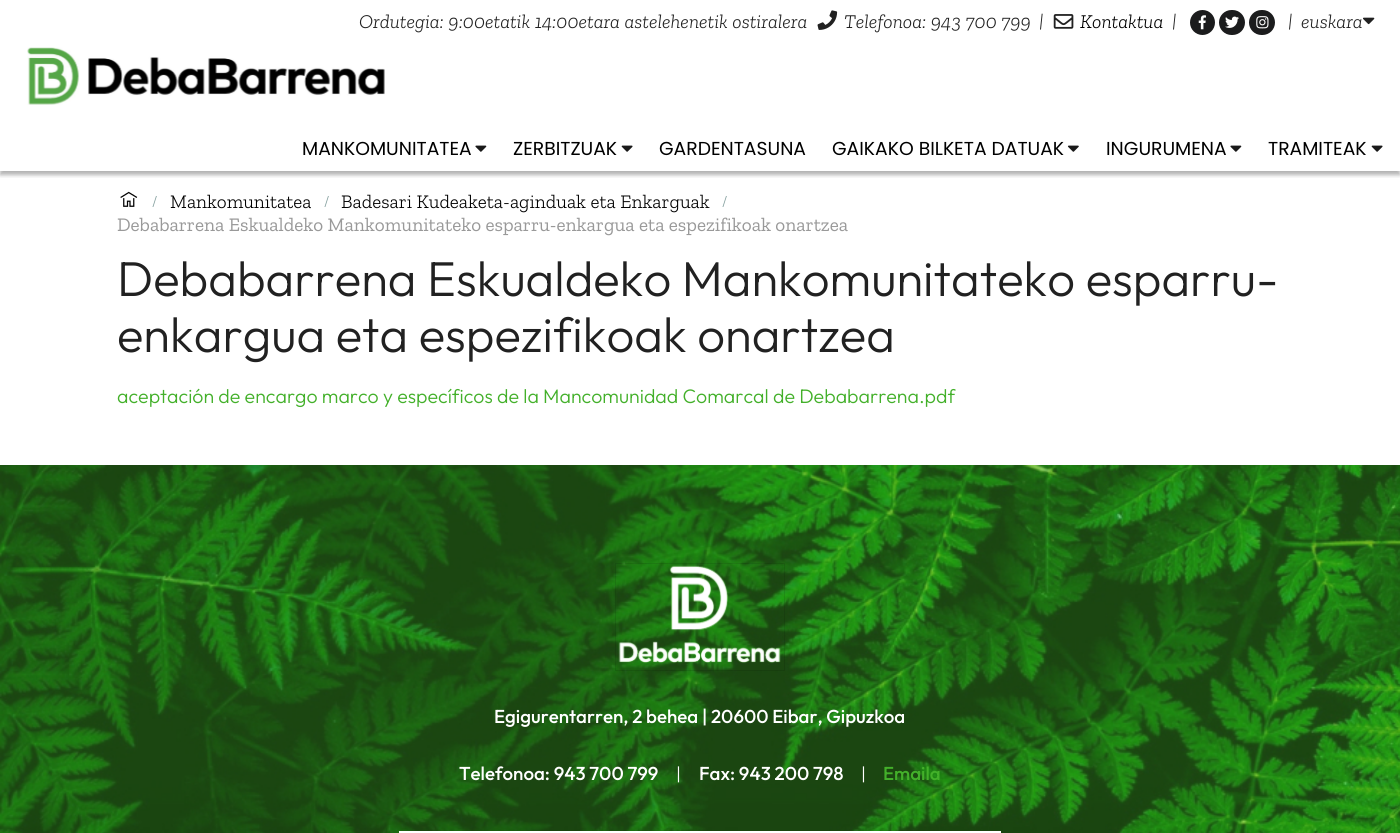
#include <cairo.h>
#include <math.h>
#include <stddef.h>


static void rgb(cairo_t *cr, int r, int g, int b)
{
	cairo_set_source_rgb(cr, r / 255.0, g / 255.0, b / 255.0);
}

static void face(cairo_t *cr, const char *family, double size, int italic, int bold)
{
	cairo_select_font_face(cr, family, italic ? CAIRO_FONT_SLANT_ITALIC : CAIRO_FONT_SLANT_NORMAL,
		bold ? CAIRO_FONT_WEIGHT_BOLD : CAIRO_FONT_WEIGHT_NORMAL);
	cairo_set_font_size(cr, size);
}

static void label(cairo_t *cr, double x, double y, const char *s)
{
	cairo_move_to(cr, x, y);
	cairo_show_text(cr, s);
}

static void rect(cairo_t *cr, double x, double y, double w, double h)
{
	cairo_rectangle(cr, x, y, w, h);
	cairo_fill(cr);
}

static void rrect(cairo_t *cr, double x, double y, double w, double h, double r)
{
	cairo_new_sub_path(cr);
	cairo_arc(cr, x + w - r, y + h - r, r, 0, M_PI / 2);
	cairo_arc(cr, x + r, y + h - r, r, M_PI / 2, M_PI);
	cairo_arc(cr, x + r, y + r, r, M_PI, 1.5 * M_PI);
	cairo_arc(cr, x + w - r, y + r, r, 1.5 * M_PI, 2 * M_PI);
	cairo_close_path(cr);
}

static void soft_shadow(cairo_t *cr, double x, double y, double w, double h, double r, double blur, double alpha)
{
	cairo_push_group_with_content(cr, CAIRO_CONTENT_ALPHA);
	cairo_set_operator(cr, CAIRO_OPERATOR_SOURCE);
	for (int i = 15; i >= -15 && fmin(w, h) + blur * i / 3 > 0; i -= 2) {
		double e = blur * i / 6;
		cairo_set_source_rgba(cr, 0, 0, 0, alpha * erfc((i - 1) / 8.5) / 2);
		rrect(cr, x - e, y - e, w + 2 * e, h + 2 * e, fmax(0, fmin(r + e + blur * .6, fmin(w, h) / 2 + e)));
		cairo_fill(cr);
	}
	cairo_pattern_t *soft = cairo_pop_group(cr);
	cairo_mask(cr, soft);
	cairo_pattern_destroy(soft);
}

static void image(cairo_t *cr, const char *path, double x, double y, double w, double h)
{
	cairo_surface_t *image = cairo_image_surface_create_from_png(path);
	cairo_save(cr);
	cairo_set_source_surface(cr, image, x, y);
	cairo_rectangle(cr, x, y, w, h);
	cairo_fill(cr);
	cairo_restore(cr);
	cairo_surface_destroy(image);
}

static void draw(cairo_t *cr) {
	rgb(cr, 255, 255, 255);
	cairo_paint(cr);
	cairo_save(cr);
	cairo_rectangle(cr, 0, 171, 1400, 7);
	cairo_clip(cr);
	rgb(cr, 1, 1, 1);
	soft_shadow(cr, 0, 9, 1400, 166, 0, 2, 0.3);
	cairo_restore(cr);
	face(cr, "Zilla Slab Light", 19.6, 1, 0);
	rgb(cr, 33, 33, 33);
	label(cr, 359, 28, "Ordutegia: 9:00etatik 14:00etara astelehenetik ostiralera");
	image(cr, "image0.png", 817, 10, 21, 20);
	label(cr, 844, 28, "Telefonoa: 943 700 799");
	label(cr, 1039, 28, "|");
	image(cr, "image1.png", 1053, 14, 21, 15);
	rgb(cr, 0, 0, 0);
	label(cr, 1080, 28, "Kontaktua");
	rgb(cr, 33, 33, 33);
	label(cr, 1172, 28, "|");
	rgb(cr, 27, 28, 29);
	cairo_new_path(cr);
	cairo_arc(cr, 1202.5, 22.5, 12.5, 0, 2 * M_PI);
	cairo_fill(cr);
	image(cr, "image2.png", 1198, 15, 8, 15);
	rrect(cr, 1219, 10, 26, 25, 12.5);
	cairo_fill(cr);
	image(cr, "image3.png", 1225, 16, 14, 12);
	rrect(cr, 1249, 10, 26, 25, 12.5);
	cairo_fill(cr);
	image(cr, "image4.png", 1256, 16, 13, 13);
	rgb(cr, 33, 33, 33);
	label(cr, 1288, 28, "|");
	label(cr, 1301, 28, "euskara");
	image(cr, "image5.png", 1363, 17, 12, 8);
	image(cr, "image6.png", 27, 47, 358, 58);
	face(cr, "Poppins", 18.75, 0, 0);
	rgb(cr, 0, 0, 0);
	label(cr, 302, 155, "MANKOMUNITATEA");
	image(cr, "image7.png", 475, 145, 12, 7);
	label(cr, 513, 155, "ZERBITZUAK");
	image(cr, "image8.png", 621, 145, 12, 7);
	label(cr, 659, 155, "GARDENTASUNA");
	label(cr, 832, 155, "GAIKAKO BILKETA DATUAK");
	image(cr, "image9.png", 1067, 145, 12, 7);
	label(cr, 1106, 155, "INGURUMENA");
	image(cr, "image7.png", 1230, 145, 12, 7);
	label(cr, 1268, 155, "TRAMITEAK");
	image(cr, "image8.png", 1371, 145, 12, 7);
	image(cr, "image10.png", 120, 191, 18, 16);
	face(cr, "Zilla Slab Light", 16, 0, 0);
	rgb(cr, 133, 160, 159);
	label(cr, 152, 207, "/");
	face(cr, "Zilla Slab Light", 19.25, 0, 0);
	rgb(cr, 0, 0, 0);
	label(cr, 170, 208, "Mankomunitatea");
	face(cr, "Zilla Slab Light", 16, 0, 0);
	rgb(cr, 133, 160, 159);
	label(cr, 324, 207, "/");
	face(cr, "Zilla Slab Light", 19.25, 0, 0);
	rgb(cr, 0, 0, 0);
	label(cr, 341, 208, "Badesari Kudeaketa-aginduak eta Enkarguak");
	face(cr, "Zilla Slab Light", 16, 0, 0);
	rgb(cr, 133, 160, 159);
	label(cr, 722, 207, "/");
	face(cr, "Zilla Slab", 19.25, 0, 0);
	rgb(cr, 153, 153, 153);
	label(cr, 117, 231, "Debabarrena Eskualdeko Mankomunitateko esparru-enkargua eta espezifikoak onartzea");
	face(cr, "Outfit Light", 49, 0, 0);
	rgb(cr, 33, 33, 33);
	label(cr, 117, 296, "Debabarrena Eskualdeko Mankomunitateko esparru-");
	label(cr, 117, 352, "enkargua eta espezifikoak onartzea");
	face(cr, "Outfit Light", 19.6, 0, 0);
	rgb(cr, 67, 176, 42);
	label(cr, 117, 403, "aceptación de encargo marco y específicos de la Mancomunidad Comarcal de Debabarrena.pdf");
	image(cr, "image11.png", 0, 465, 1400, 368);
	cairo_rectangle(cr, 615.5, 563.5, 169, 107);
	cairo_set_source_rgba(cr, 0, 0, 0, 0.1);
	cairo_set_line_width(cr, 1);
	cairo_stroke(cr);
	image(cr, "image12.png", 618, 565, 163, 100);
	face(cr, "Outfit Medium", 18.75, 0, 0);
	rgb(cr, 255, 255, 255);
	label(cr, 494, 723, "Egigurentarren, 2 behea | 20600 Eibar, Gipuzkoa");
	label(cr, 459, 780, "Telefonoa: 943 700 799");
	face(cr, "Outfit Light", 18, 0, 0);
	label(cr, 676, 780, "|");
	face(cr, "Outfit Medium", 18.75, 0, 0);
	label(cr, 699, 780, "Fax: 943 200 798");
	face(cr, "Outfit Light", 18, 0, 0);
	label(cr, 861, 780, "|");
	face(cr, "Outfit Medium", 18.75, 0, 0);
	rgb(cr, 67, 176, 42);
	label(cr, 883, 780, "Emaila");
	rgb(cr, 255, 255, 255);
	rect(cr, 399, 831, 602, 2);
}

int main(void) {
	cairo_surface_t *surface = cairo_image_surface_create(CAIRO_FORMAT_RGB24, 1400, 833);
	cairo_t *cr = cairo_create(surface);
	cairo_font_options_t *options = cairo_font_options_create();
	cairo_font_options_set_hint_metrics(options, CAIRO_HINT_METRICS_OFF);
	cairo_font_options_set_hint_style(options, CAIRO_HINT_STYLE_NONE);
	cairo_set_font_options(cr, options);
	cairo_set_miter_limit(cr, 4);
	draw(cr);
	cairo_surface_write_to_png(surface, "render.png");
	cairo_font_options_destroy(options);
	cairo_destroy(cr);
	cairo_surface_destroy(surface);
	return 0;
}
